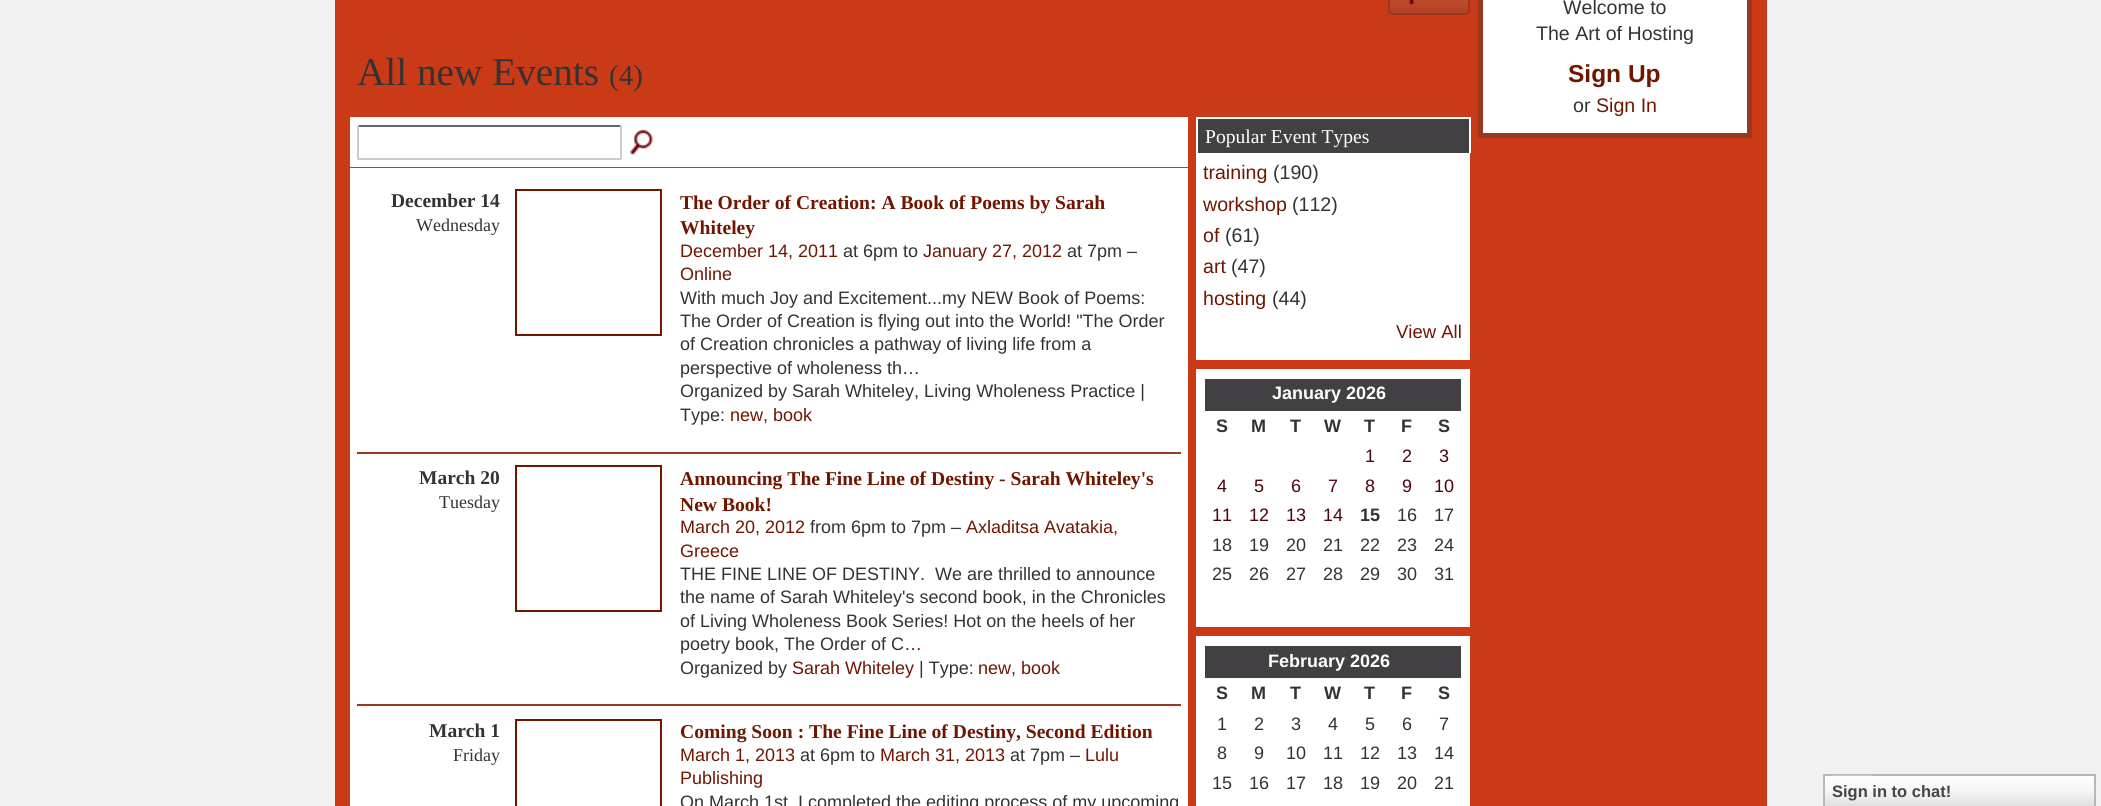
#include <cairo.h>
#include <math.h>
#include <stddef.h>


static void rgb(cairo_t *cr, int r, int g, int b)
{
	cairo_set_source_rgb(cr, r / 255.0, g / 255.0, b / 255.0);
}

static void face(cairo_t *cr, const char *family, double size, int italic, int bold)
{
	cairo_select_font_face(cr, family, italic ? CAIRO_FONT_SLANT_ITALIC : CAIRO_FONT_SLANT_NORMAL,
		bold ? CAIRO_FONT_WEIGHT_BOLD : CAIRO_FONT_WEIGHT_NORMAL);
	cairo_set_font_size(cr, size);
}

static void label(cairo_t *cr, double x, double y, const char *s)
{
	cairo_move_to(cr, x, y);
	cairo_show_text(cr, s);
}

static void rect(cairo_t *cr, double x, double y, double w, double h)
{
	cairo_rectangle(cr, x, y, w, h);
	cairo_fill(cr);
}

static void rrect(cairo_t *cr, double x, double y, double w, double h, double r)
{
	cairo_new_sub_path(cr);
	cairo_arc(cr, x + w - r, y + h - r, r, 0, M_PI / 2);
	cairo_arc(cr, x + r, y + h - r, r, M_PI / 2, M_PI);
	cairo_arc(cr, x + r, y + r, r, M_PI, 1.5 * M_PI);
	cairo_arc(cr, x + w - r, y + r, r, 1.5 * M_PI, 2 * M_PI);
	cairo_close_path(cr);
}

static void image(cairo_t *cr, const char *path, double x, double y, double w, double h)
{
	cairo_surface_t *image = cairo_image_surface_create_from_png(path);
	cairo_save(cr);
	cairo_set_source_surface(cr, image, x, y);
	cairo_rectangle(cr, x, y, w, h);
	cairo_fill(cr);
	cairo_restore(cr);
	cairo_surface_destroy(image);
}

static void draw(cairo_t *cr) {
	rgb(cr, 241, 241, 241);
	cairo_paint(cr);
	rgb(cr, 202, 58, 23);
	rect(cr, 335, 0, 1432, 806);
	image(cr, "image0.png", 1387, 0, 83, 15);
	rrect(cr, 1389, -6, 80, 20, 4);
	rgb(cr, 152, 56, 32);
	cairo_stroke(cr);
	image(cr, "image1.png", 1408, 0, 7, 5);
	face(cr, "Liberation Serif", 39.25, 0, 0);
	rgb(cr, 51, 51, 51);
	label(cr, 357, 85, "All new Events");
	face(cr, "Liberation Serif", 29, 0, 0);
	label(cr, 609, 85, "(4)");
	rgb(cr, 255, 255, 255);
	rect(cr, 350, 117, 838, 50);
	rgb(cr, 102, 102, 102);
	rect(cr, 357, 125, 264, 2);
	rgb(cr, 204, 204, 204);
	rect(cr, 620, 125, 2, 34);
	rect(cr, 357, 158, 264, 2);
	rect(cr, 357, 125, 2, 34);
	image(cr, "image2.png", 630, 130, 23, 25);
	rgb(cr, 255, 255, 255);
	rect(cr, 350, 168, 838, 638);
	rgb(cr, 152, 56, 32);
	rect(cr, 357, 452, 824, 2);
	face(cr, "Liberation Serif", 19.5, 0, 1);
	rgb(cr, 51, 51, 51);
	label(cr, 391, 207, "December 14");
	face(cr, "Liberation Serif", 18, 0, 0);
	label(cr, 416, 231, "Wednesday");
	cairo_rectangle(cr, 516, 190, 145, 145);
	rgb(cr, 112, 22, 0);
	cairo_stroke(cr);
	face(cr, "Liberation Serif", 19.6, 0, 1);
	label(cr, 680, 209, "The Order of Creation: A Book of Poems by Sarah");
	label(cr, 680, 234, "Whiteley");
	face(cr, "Liberation Sans", 18, 0, 0);
	label(cr, 680, 257, "December 14, 2011");
	rgb(cr, 51, 51, 51);
	label(cr, 843, 257, "at 6pm to");
	rgb(cr, 112, 22, 0);
	label(cr, 923, 257, "January 27, 2012");
	rgb(cr, 51, 51, 51);
	label(cr, 1067, 257, "at 7pm –");
	rgb(cr, 112, 22, 0);
	label(cr, 680, 280, "Online");
	rgb(cr, 51, 51, 51);
	label(cr, 680, 304, "With much Joy and Excitement...my NEW Book of Poems:");
	label(cr, 680, 327, "The Order of Creation is flying out into the World! \"The Order");
	label(cr, 680, 350, "of Creation chronicles a pathway of living life from a");
	label(cr, 680, 374, "perspective of wholeness th");
	rgb(cr, 112, 22, 0);
	label(cr, 902, 374, "…");
	rgb(cr, 51, 51, 51);
	label(cr, 680, 397, "Organized by Sarah Whiteley, Living Wholeness Practice |");
	label(cr, 680, 421, "Type:");
	rgb(cr, 112, 22, 0);
	label(cr, 730, 421, "new");
	rgb(cr, 51, 51, 51);
	label(cr, 763, 421, ",");
	rgb(cr, 112, 22, 0);
	label(cr, 773, 421, "book");
	rgb(cr, 152, 56, 32);
	rect(cr, 357, 704, 824, 2);
	face(cr, "Liberation Serif", 19.5, 0, 1);
	rgb(cr, 51, 51, 51);
	label(cr, 419, 484, "March 20");
	face(cr, "Liberation Serif", 18, 0, 0);
	label(cr, 439, 508, "Tuesday");
	cairo_rectangle(cr, 516, 466, 145, 145);
	rgb(cr, 112, 22, 0);
	cairo_stroke(cr);
	face(cr, "Liberation Serif", 19.6, 0, 1);
	label(cr, 680, 485, "Announcing The Fine Line of Destiny - Sarah Whiteley's");
	label(cr, 680, 511, "New Book!");
	face(cr, "Liberation Sans", 18, 0, 0);
	label(cr, 680, 533, "March 20, 2012");
	rgb(cr, 51, 51, 51);
	label(cr, 810, 533, "from 6pm to 7pm –");
	rgb(cr, 112, 22, 0);
	label(cr, 966, 533, "Axladitsa Avatakia,");
	label(cr, 680, 557, "Greece");
	rgb(cr, 51, 51, 51);
	label(cr, 680, 580, "THE FINE LINE OF DESTINY.  We are thrilled to announce");
	label(cr, 680, 603, "the name of Sarah Whiteley's second book, in the Chronicles");
	label(cr, 680, 627, "of Living Wholeness Book Series! Hot on the heels of her");
	label(cr, 680, 650, "poetry book, The Order of C");
	rgb(cr, 112, 22, 0);
	label(cr, 904, 650, "…");
	rgb(cr, 51, 51, 51);
	label(cr, 680, 674, "Organized by");
	rgb(cr, 112, 22, 0);
	label(cr, 792, 674, "Sarah Whiteley");
	rgb(cr, 51, 51, 51);
	label(cr, 919, 674, "| Type:");
	rgb(cr, 112, 22, 0);
	label(cr, 978, 674, "new");
	rgb(cr, 51, 51, 51);
	label(cr, 1011, 674, ",");
	rgb(cr, 112, 22, 0);
	label(cr, 1021, 674, "book");
	face(cr, "Liberation Serif", 19.5, 0, 1);
	rgb(cr, 51, 51, 51);
	label(cr, 429, 737, "March 1");
	face(cr, "Liberation Serif", 18, 0, 0);
	label(cr, 453, 761, "Friday");
	cairo_rectangle(cr, 516, 720, 145, 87);
	rgb(cr, 112, 22, 0);
	cairo_stroke(cr);
	face(cr, "Liberation Serif", 19.6, 0, 1);
	label(cr, 680, 738, "Coming Soon : The Fine Line of Destiny, Second Edition");
	face(cr, "Liberation Sans", 18, 0, 0);
	label(cr, 680, 761, "March 1, 2013");
	rgb(cr, 51, 51, 51);
	label(cr, 800, 761, "at 6pm to");
	rgb(cr, 112, 22, 0);
	label(cr, 880, 761, "March 31, 2013");
	rgb(cr, 51, 51, 51);
	label(cr, 1010, 761, "at 7pm –");
	rgb(cr, 112, 22, 0);
	label(cr, 1085, 761, "Lulu");
	label(cr, 680, 784, "Publishing");
	rgb(cr, 51, 51, 51);
	label(cr, 680, 808, "On March 1st, I completed the editing process of my upcoming");
	rgb(cr, 66, 64, 67);
	rect(cr, 1198, 119, 271, 34);
	rgb(cr, 255, 255, 255);
	rect(cr, 1196, 117, 274, 2);
	rect(cr, 1469, 117, 2, 36);
	rect(cr, 1196, 117, 2, 36);
	face(cr, "Liberation Serif", 19.6, 0, 0);
	label(cr, 1205, 143, "Popular Event Types");
	rect(cr, 1196, 153, 274, 207);
	face(cr, "Liberation Sans", 19.6, 0, 0);
	rgb(cr, 112, 22, 0);
	label(cr, 1203, 179, "training");
	rgb(cr, 51, 51, 51);
	label(cr, 1273, 179, "(190)");
	rgb(cr, 112, 22, 0);
	label(cr, 1203, 211, "workshop");
	rgb(cr, 51, 51, 51);
	label(cr, 1292, 211, "(112)");
	rgb(cr, 112, 22, 0);
	label(cr, 1203, 242, "of");
	rgb(cr, 51, 51, 51);
	label(cr, 1225, 242, "(61)");
	rgb(cr, 112, 22, 0);
	label(cr, 1203, 273, "art");
	rgb(cr, 51, 51, 51);
	label(cr, 1231, 273, "(47)");
	rgb(cr, 112, 22, 0);
	label(cr, 1203, 305, "hosting");
	rgb(cr, 51, 51, 51);
	label(cr, 1272, 305, "(44)");
	face(cr, "Liberation Sans", 18.5, 0, 0);
	rgb(cr, 112, 22, 0);
	label(cr, 1396, 338, "View All");
	rgb(cr, 255, 255, 255);
	rect(cr, 1196, 369, 274, 258);
	rgb(cr, 66, 64, 67);
	rect(cr, 1205, 379, 256, 32);
	face(cr, "Liberation Sans", 18, 0, 1);
	rgb(cr, 255, 255, 255);
	label(cr, 1272, 399, "January 2026");
	rgb(cr, 51, 51, 51);
	label(cr, 1216, 432, "S");
	label(cr, 1251, 432, "M");
	label(cr, 1290, 432, "T");
	label(cr, 1324, 432, "W");
	label(cr, 1364, 432, "T");
	label(cr, 1401, 432, "F");
	label(cr, 1438, 432, "S");
	face(cr, "Liberation Sans", 18, 0, 0);
	rgb(cr, 76, 4, 14);
	label(cr, 1365, 462, "1");
	label(cr, 1402, 462, "2");
	label(cr, 1439, 462, "3");
	label(cr, 1217, 492, "4");
	label(cr, 1254, 492, "5");
	label(cr, 1291, 492, "6");
	label(cr, 1328, 492, "7");
	label(cr, 1365, 492, "8");
	label(cr, 1402, 492, "9");
	label(cr, 1434, 492, "10");
	label(cr, 1212, 521, "11");
	label(cr, 1249, 521, "12");
	label(cr, 1286, 521, "13");
	label(cr, 1323, 521, "14");
	face(cr, "Liberation Sans", 18, 0, 1);
	rgb(cr, 51, 51, 51);
	label(cr, 1360, 521, "15");
	face(cr, "Liberation Sans", 18, 0, 0);
	label(cr, 1397, 521, "16");
	label(cr, 1434, 521, "17");
	label(cr, 1212, 551, "18");
	label(cr, 1249, 551, "19");
	label(cr, 1286, 551, "20");
	label(cr, 1323, 551, "21");
	label(cr, 1360, 551, "22");
	label(cr, 1397, 551, "23");
	label(cr, 1434, 551, "24");
	label(cr, 1212, 580, "25");
	label(cr, 1249, 580, "26");
	label(cr, 1286, 580, "27");
	label(cr, 1323, 580, "28");
	label(cr, 1360, 580, "29");
	label(cr, 1397, 580, "30");
	label(cr, 1434, 580, "31");
	rgb(cr, 255, 255, 255);
	rect(cr, 1196, 636, 274, 170);
	rgb(cr, 66, 64, 67);
	rect(cr, 1205, 646, 256, 32);
	face(cr, "Liberation Sans", 18, 0, 1);
	rgb(cr, 255, 255, 255);
	label(cr, 1268, 667, "February 2026");
	rgb(cr, 51, 51, 51);
	label(cr, 1216, 699, "S");
	label(cr, 1251, 699, "M");
	label(cr, 1290, 699, "T");
	label(cr, 1324, 699, "W");
	label(cr, 1364, 699, "T");
	label(cr, 1401, 699, "F");
	label(cr, 1438, 699, "S");
	face(cr, "Liberation Sans", 18, 0, 0);
	label(cr, 1217, 730, "1");
	label(cr, 1254, 730, "2");
	label(cr, 1291, 730, "3");
	label(cr, 1328, 730, "4");
	label(cr, 1365, 730, "5");
	label(cr, 1402, 730, "6");
	label(cr, 1439, 730, "7");
	label(cr, 1217, 759, "8");
	label(cr, 1254, 759, "9");
	label(cr, 1286, 759, "10");
	label(cr, 1323, 759, "11");
	label(cr, 1360, 759, "12");
	label(cr, 1397, 759, "13");
	label(cr, 1434, 759, "14");
	label(cr, 1212, 789, "15");
	label(cr, 1249, 789, "16");
	label(cr, 1286, 789, "17");
	label(cr, 1323, 789, "18");
	label(cr, 1360, 789, "19");
	label(cr, 1397, 789, "20");
	label(cr, 1434, 789, "21");
	rgb(cr, 255, 255, 255);
	cairo_rectangle(cr, 1480.5, -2.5, 269, 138);
	cairo_fill_preserve(cr);
	rgb(cr, 152, 56, 32);
	cairo_set_line_width(cr, 5);
	cairo_stroke(cr);
	face(cr, "Liberation Sans", 19.6, 0, 0);
	rgb(cr, 51, 51, 51);
	label(cr, 1563, 14, "Welcome to");
	label(cr, 1536, 40, "The Art of Hosting");
	face(cr, "Liberation Sans", 24.5, 0, 1);
	rgb(cr, 112, 22, 0);
	label(cr, 1568, 82, "Sign Up");
	face(cr, "Liberation Sans", 19.6, 0, 0);
	rgb(cr, 51, 51, 51);
	label(cr, 1573, 112, "or");
	rgb(cr, 112, 22, 0);
	label(cr, 1596, 112, "Sign In");
	image(cr, "image3.png", 1825, 776, 269, 30);
	cairo_rectangle(cr, 1824, 775, 271, 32);
	rgb(cr, 183, 183, 183);
	cairo_set_line_width(cr, 2);
	cairo_stroke(cr);
	image(cr, "image4.png", 1831, 775, 41, 1);
	face(cr, "Liberation Sans", 16.5, 0, 1);
	rgb(cr, 69, 69, 69);
	label(cr, 1832, 797, "Sign in to chat!");
}

int main(void) {
	cairo_surface_t *surface = cairo_image_surface_create(CAIRO_FORMAT_RGB24, 2101, 806);
	cairo_t *cr = cairo_create(surface);
	cairo_font_options_t *options = cairo_font_options_create();
	cairo_font_options_set_hint_metrics(options, CAIRO_HINT_METRICS_OFF);
	cairo_font_options_set_hint_style(options, CAIRO_HINT_STYLE_NONE);
	cairo_set_font_options(cr, options);
	cairo_set_miter_limit(cr, 4);
	draw(cr);
	cairo_surface_write_to_png(surface, "render.png");
	cairo_font_options_destroy(options);
	cairo_destroy(cr);
	cairo_surface_destroy(surface);
	return 0;
}
